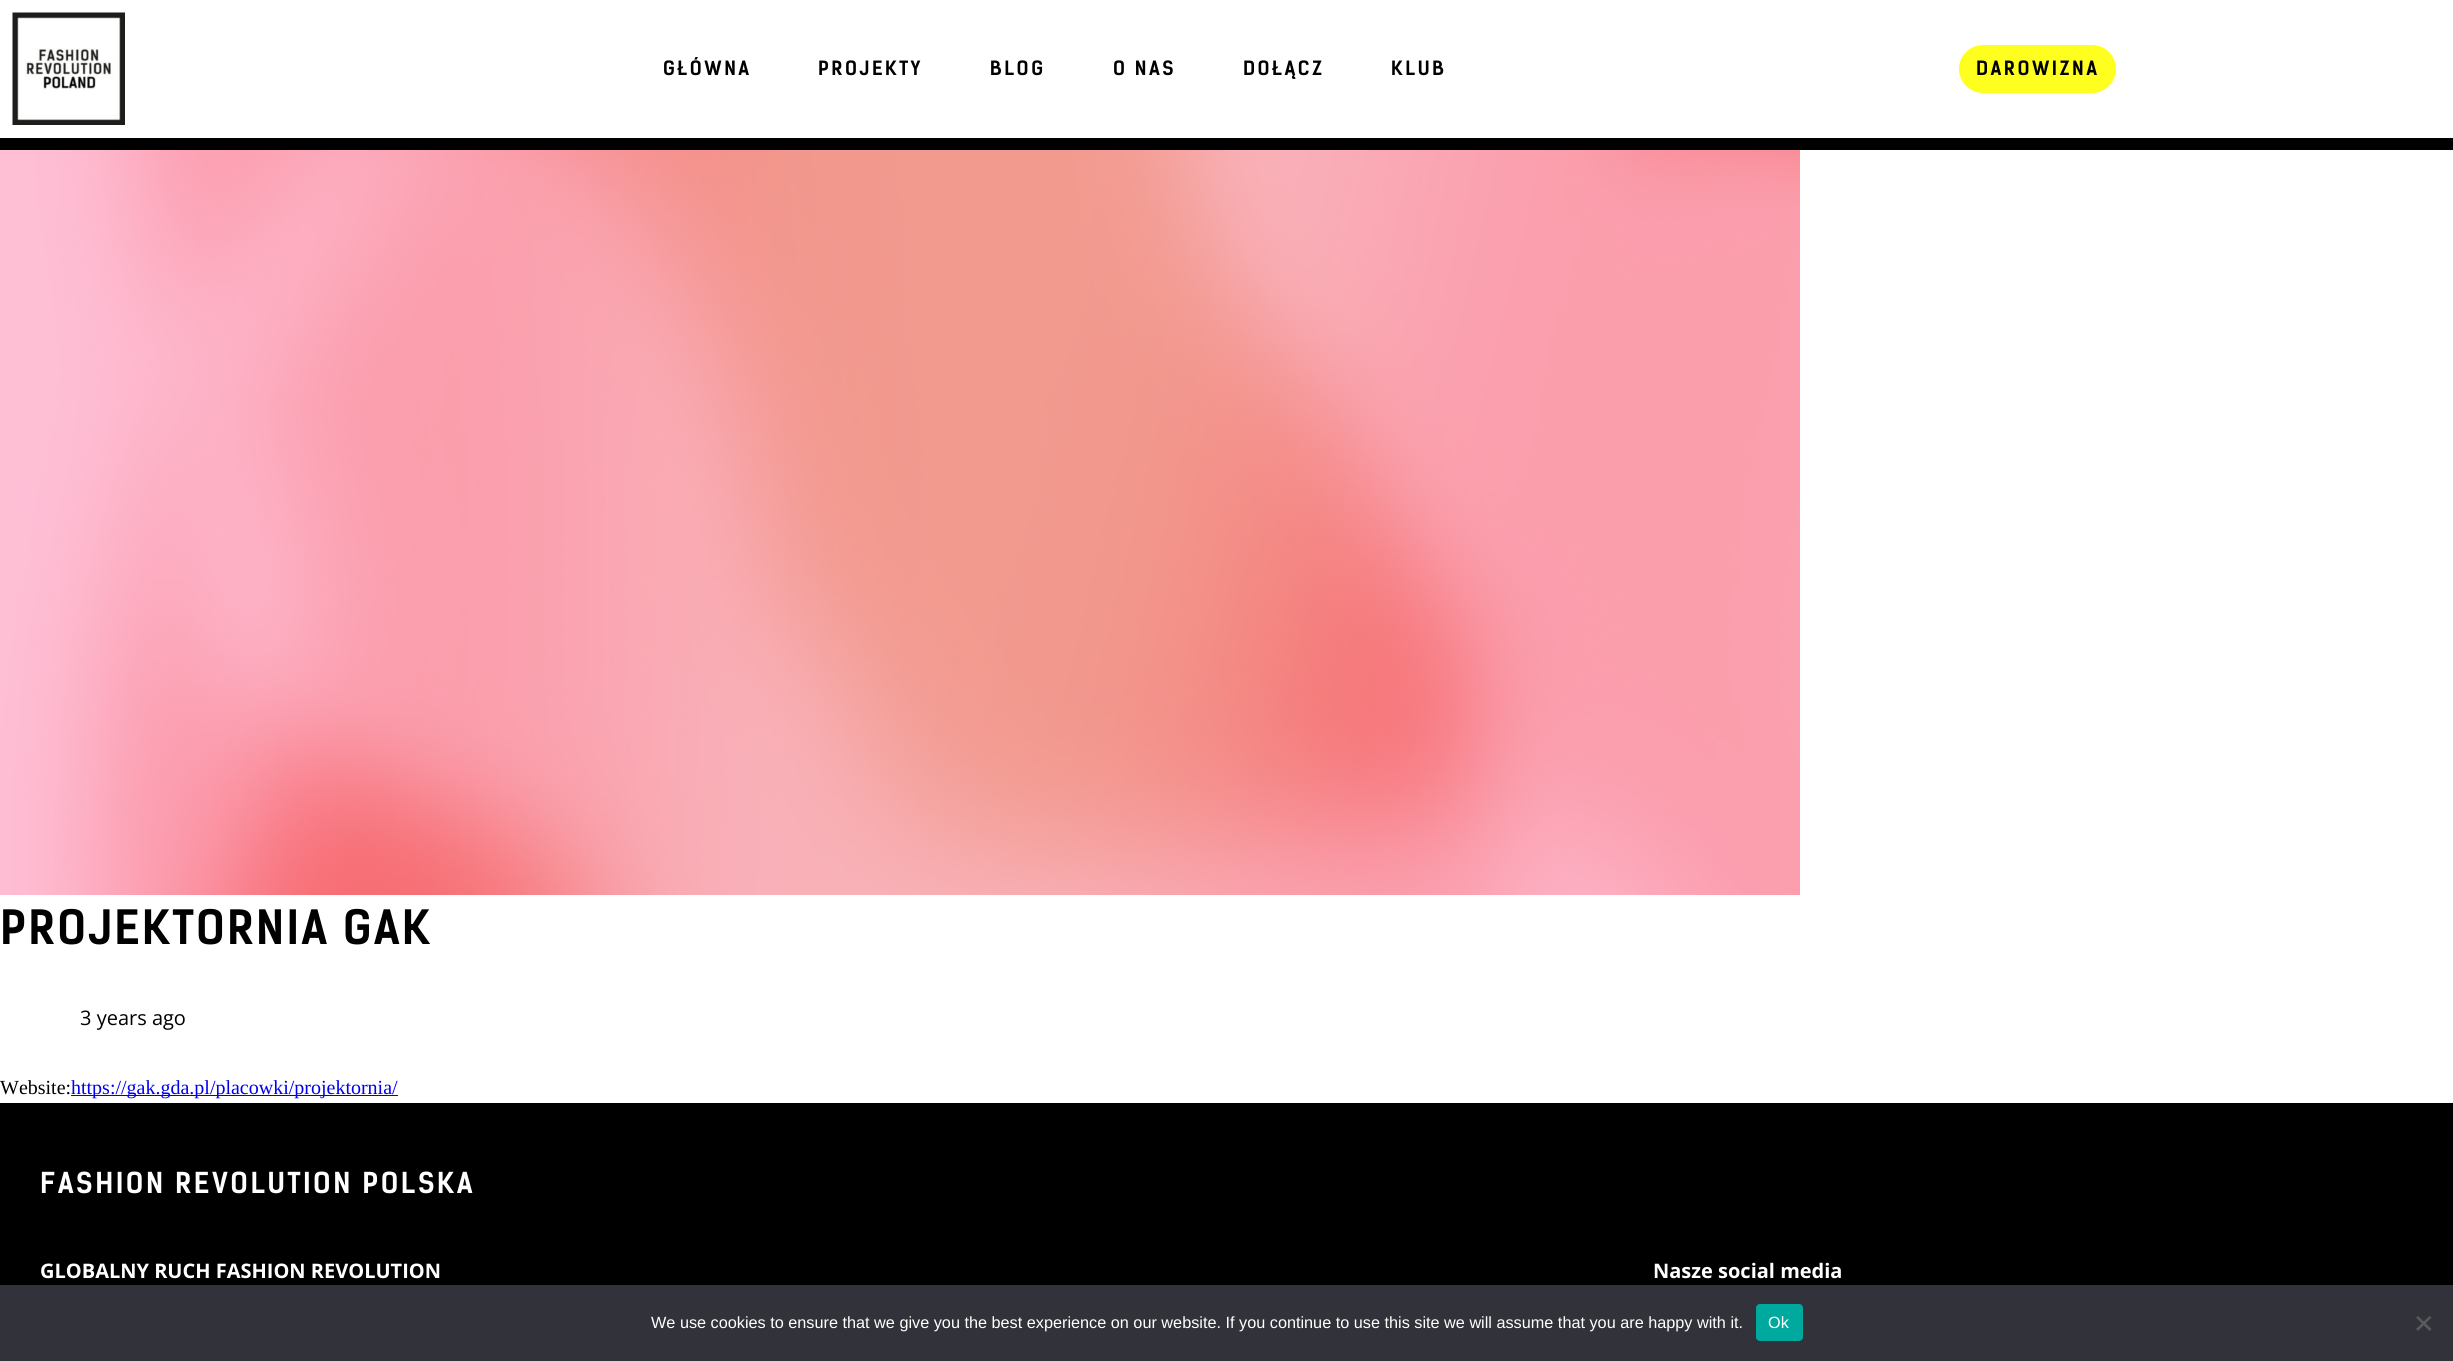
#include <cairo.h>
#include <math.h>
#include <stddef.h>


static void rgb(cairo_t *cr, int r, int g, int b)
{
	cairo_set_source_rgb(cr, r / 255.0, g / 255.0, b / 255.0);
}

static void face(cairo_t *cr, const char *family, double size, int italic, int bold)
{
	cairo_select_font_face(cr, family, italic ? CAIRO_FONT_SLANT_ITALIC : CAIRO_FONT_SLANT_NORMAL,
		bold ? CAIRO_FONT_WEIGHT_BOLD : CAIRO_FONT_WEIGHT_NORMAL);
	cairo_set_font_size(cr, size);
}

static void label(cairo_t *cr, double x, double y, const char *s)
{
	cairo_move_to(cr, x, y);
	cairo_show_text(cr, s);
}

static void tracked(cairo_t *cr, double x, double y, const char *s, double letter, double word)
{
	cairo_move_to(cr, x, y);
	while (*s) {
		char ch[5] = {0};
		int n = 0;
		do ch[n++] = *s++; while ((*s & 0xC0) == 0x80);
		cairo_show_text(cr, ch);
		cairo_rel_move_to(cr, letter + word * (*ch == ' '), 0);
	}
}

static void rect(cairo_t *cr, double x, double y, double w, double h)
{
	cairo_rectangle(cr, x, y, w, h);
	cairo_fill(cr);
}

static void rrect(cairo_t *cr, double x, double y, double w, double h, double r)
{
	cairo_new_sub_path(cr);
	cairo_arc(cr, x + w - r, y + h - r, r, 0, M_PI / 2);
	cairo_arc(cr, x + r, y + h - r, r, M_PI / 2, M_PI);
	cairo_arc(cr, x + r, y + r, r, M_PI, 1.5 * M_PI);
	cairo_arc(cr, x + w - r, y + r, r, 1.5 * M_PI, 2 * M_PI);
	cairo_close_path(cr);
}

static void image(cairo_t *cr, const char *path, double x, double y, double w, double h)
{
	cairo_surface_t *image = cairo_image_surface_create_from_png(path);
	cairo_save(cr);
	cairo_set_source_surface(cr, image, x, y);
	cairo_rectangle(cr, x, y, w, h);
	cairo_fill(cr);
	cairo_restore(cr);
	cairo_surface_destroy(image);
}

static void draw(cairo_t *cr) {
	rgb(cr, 255, 255, 255);
	cairo_paint(cr);
	rgb(cr, 0, 0, 0);
	rect(cr, 0, 138, 2453, 12);
	image(cr, "image0.png", 12, 12, 113, 113);
	face(cr, "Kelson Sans", 18.75, 0, 1);
	tracked(cr, 663, 75, "GŁÓWNA", 2.5, 0);
	tracked(cr, 818, 75, "PROJEKTY", 2.5, 0);
	tracked(cr, 990, 75, "BLOG", 2.5, 0);
	tracked(cr, 1113, 75, "O NAS", 2.5, 0);
	tracked(cr, 1243, 75, "DOŁĄCZ", 2.5, 0);
	tracked(cr, 1391, 75, "KLUB", 2.5, 0);
	rgb(cr, 255, 255, 31);
	rrect(cr, 1959, 45, 157, 48, 24);
	cairo_fill(cr);
	rgb(cr, 0, 0, 0);
	tracked(cr, 1976, 75, "DAROWIZNA", 2.5, 0);
	image(cr, "image1.png", 0, 150, 1800, 745);
	face(cr, "Kelson Sans", 45, 0, 1);
	tracked(cr, 0, 944, "PROJEKTORNIA GAK", 2.25, 0);
	face(cr, "Open Sans", 20, 0, 0);
	label(cr, 80, 1025, "3 years ago");
	face(cr, "Liberation Serif", 20, 0, 0);
	label(cr, 0, 1094, "Website:");
	rgb(cr, 0, 0, 238);
	rect(cr, 71, 1095, 327, 1);
	label(cr, 71, 1094, "https://gak.gda.pl/placowki/projektornia/");
	rgb(cr, 0, 0, 0);
	rect(cr, 0, 1103, 2453, 182);
	face(cr, "Kelson Sans", 27.5, 0, 1);
	rgb(cr, 255, 255, 255);
	tracked(cr, 40, 1193, "FASHION REVOLUTION POLSKA", 2.5, 0);
	face(cr, "Open Sans", 20, 0, 1);
	label(cr, 40, 1278, "GLOBALNY RUCH FASHION REVOLUTION");
	label(cr, 1653, 1278, "Nasze social media");
	rgb(cr, 50, 50, 58);
	rect(cr, 0, 1285, 2453, 76);
	face(cr, "Liberation Sans", 16.25, 0, 0);
	rgb(cr, 255, 255, 255);
	label(cr, 651, 1328, "We use cookies to ensure that we give you the best experience on our website. If you continue to use this site we will assume that you are happy with it.");
	rgb(cr, 0, 169, 157);
	rrect(cr, 1756, 1304, 47, 37, 4);
	cairo_fill(cr);
	rgb(cr, 255, 255, 255);
	label(cr, 1768, 1328, "Ok");
	rgb(cr, 89, 89, 93);
	cairo_new_path(cr);
	cairo_move_to(cr, 2429.5, 1316);
	cairo_line_to(cr, 2431.5, 1317.5);
	cairo_line_to(cr, 2418, 1331);
	cairo_line_to(cr, 2416, 1329);
	cairo_close_path(cr);
	cairo_fill(cr);
	cairo_new_path(cr);
	cairo_move_to(cr, 2416, 1317.5);
	cairo_line_to(cr, 2418, 1316);
	cairo_line_to(cr, 2431.5, 1329);
	cairo_line_to(cr, 2429.5, 1331);
	cairo_close_path(cr);
	cairo_fill(cr);
}

int main(void) {
	cairo_surface_t *surface = cairo_image_surface_create(CAIRO_FORMAT_RGB24, 2453, 1361);
	cairo_t *cr = cairo_create(surface);
	cairo_font_options_t *options = cairo_font_options_create();
	cairo_font_options_set_hint_metrics(options, CAIRO_HINT_METRICS_OFF);
	cairo_font_options_set_hint_style(options, CAIRO_HINT_STYLE_NONE);
	cairo_set_font_options(cr, options);
	cairo_set_miter_limit(cr, 4);
	draw(cr);
	cairo_surface_write_to_png(surface, "render.png");
	cairo_font_options_destroy(options);
	cairo_destroy(cr);
	cairo_surface_destroy(surface);
	return 0;
}
